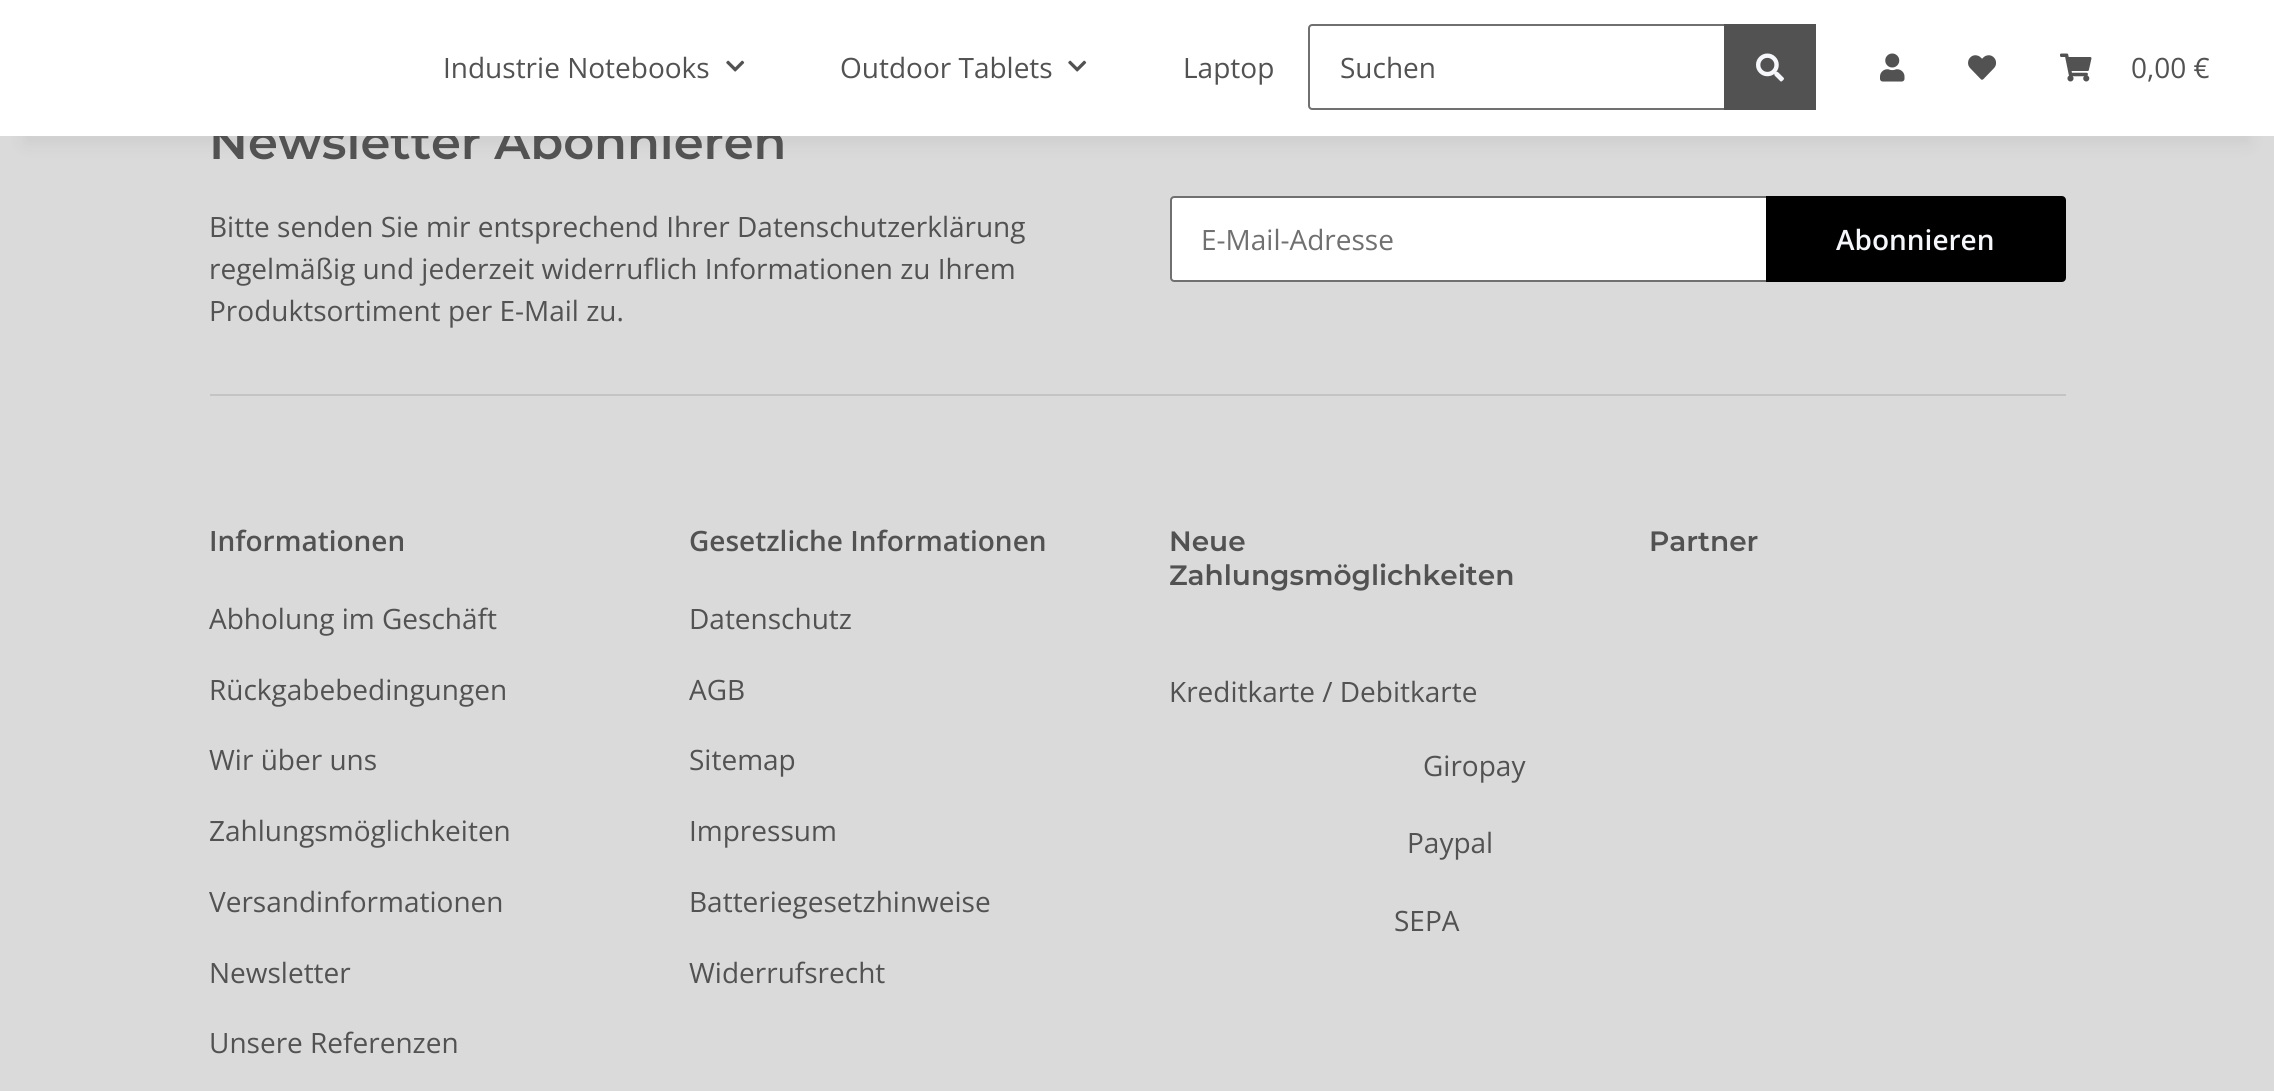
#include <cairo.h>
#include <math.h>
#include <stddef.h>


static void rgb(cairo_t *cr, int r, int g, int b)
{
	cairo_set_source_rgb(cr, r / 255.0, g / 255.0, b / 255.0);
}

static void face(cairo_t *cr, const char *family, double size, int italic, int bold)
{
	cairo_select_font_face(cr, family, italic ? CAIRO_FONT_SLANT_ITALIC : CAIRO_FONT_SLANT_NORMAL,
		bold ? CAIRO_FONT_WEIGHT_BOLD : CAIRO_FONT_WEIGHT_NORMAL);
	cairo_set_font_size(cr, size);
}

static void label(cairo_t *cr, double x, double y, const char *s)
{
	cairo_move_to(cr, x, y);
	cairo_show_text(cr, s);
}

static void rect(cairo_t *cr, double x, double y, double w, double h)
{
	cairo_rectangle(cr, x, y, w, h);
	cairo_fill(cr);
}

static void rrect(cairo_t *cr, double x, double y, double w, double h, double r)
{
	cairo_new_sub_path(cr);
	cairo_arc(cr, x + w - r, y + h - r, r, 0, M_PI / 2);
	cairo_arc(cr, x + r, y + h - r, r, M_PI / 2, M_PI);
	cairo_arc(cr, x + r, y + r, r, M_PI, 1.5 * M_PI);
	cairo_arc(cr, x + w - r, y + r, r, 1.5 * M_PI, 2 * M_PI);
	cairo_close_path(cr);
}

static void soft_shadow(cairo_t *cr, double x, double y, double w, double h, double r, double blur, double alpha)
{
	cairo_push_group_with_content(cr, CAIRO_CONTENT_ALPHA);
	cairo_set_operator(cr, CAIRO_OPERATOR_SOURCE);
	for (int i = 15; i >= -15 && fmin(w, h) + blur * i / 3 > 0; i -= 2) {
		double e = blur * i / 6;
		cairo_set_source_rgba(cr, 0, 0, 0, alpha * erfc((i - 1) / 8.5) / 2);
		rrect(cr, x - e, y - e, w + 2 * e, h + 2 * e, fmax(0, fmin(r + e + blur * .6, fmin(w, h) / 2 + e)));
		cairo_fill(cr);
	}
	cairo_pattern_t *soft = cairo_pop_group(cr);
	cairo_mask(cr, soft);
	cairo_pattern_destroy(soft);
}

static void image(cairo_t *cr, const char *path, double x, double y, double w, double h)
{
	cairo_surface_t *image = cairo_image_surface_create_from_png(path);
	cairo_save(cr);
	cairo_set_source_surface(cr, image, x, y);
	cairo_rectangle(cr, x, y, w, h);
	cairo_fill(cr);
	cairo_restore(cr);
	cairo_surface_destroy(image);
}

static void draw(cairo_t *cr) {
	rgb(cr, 218, 218, 218);
	cairo_paint(cr);
	rgb(cr, 0, 0, 0);
	soft_shadow(cr, 24, 56, 2226, 88, 0, 9, 0.06);
	face(cr, "Montserrat SemiBold", 48, 0, 0);
	rgb(cr, 82, 82, 82);
	label(cr, 209, 159, "Newsletter Abonnieren");
	rgb(cr, 255, 255, 255);
	rect(cr, 0, 0, 2274, 136);
	face(cr, "Open Sans", 28, 0, 0);
	rgb(cr, 82, 82, 82);
	label(cr, 443, 78, "Industrie Notebooks");
	image(cr, "image0.png", 726, 60, 19, 12);
	label(cr, 840, 78, "Outdoor Tablets");
	image(cr, "image0.png", 1068, 60, 19, 12);
	label(cr, 1183, 78, "Laptop");
	cairo_new_path(cr);
	cairo_move_to(cr, 1312, 25);
	cairo_line_to(cr, 1725, 25);
	cairo_line_to(cr, 1725, 109);
	cairo_line_to(cr, 1312, 109);
	cairo_curve_to(cr, 1310.5, 109, 1309, 107.5, 1309, 106);
	cairo_line_to(cr, 1309, 28);
	cairo_curve_to(cr, 1309, 26.5, 1310.5, 25, 1312, 25);
	cairo_close_path(cr);
	rgb(cr, 112, 112, 112);
	cairo_stroke(cr);
	rgb(cr, 82, 82, 82);
	label(cr, 1340, 78, "Suchen");
	rect(cr, 1724, 24, 92, 86);
	image(cr, "image1.png", 1756, 53, 28, 29);
	image(cr, "image2.png", 1880, 53, 25, 29);
	image(cr, "image3.png", 1968, 55, 29, 25);
	image(cr, "image4.png", 2060, 53, 32, 29);
	label(cr, 2131, 78, "0,00 €");
	label(cr, 209, 237, "Bitte senden Sie mir entsprechend Ihrer Datenschutzerklärung");
	label(cr, 209, 279, "regelmäßig und jederzeit widerruflich Informationen zu Ihrem");
	label(cr, 209, 321, "Produktsortiment per E-Mail zu.");
	rgb(cr, 255, 255, 255);
	cairo_new_path(cr);
	cairo_move_to(cr, 1174, 197);
	cairo_line_to(cr, 1767, 197);
	cairo_line_to(cr, 1767, 281);
	cairo_line_to(cr, 1174, 281);
	cairo_curve_to(cr, 1172.5, 281, 1171, 279.5, 1171, 278);
	cairo_line_to(cr, 1171, 200);
	cairo_curve_to(cr, 1171, 198.5, 1172.5, 197, 1174, 197);
	cairo_close_path(cr);
	cairo_fill_preserve(cr);
	rgb(cr, 112, 112, 112);
	cairo_stroke(cr);
	label(cr, 1201, 250, "E-Mail-Adresse");
	rgb(cr, 0, 0, 0);
	cairo_new_path(cr);
	cairo_move_to(cr, 1767, 197);
	cairo_line_to(cr, 2062, 197);
	cairo_curve_to(cr, 2063.5, 197, 2065, 198.5, 2065, 200);
	cairo_line_to(cr, 2065, 278);
	cairo_curve_to(cr, 2065, 279.5, 2063.5, 281, 2062, 281);
	cairo_line_to(cr, 1767, 281);
	cairo_close_path(cr);
	cairo_fill_preserve(cr);
	cairo_stroke(cr);
	face(cr, "Open Sans SemiBold", 28, 0, 0);
	rgb(cr, 245, 247, 250);
	label(cr, 1836, 250, "Abonnieren");
	rgb(cr, 196, 196, 196);
	rect(cr, 210, 394, 1856, 2);
	rgb(cr, 82, 82, 82);
	label(cr, 209, 551, "Informationen");
	face(cr, "Open Sans", 28, 0, 0);
	label(cr, 209, 629, "Abholung im Geschäft");
	label(cr, 209, 700, "Rückgabebedingungen");
	label(cr, 209, 770, "Wir über uns");
	label(cr, 209, 841, "Zahlungsmöglichkeiten");
	label(cr, 209, 912, "Versandinformationen");
	label(cr, 209, 983, "Newsletter");
	label(cr, 209, 1053, "Unsere Referenzen");
	face(cr, "Open Sans SemiBold", 28, 0, 0);
	label(cr, 689, 551, "Gesetzliche Informationen");
	face(cr, "Open Sans", 28, 0, 0);
	label(cr, 689, 629, "Datenschutz");
	label(cr, 689, 700, "AGB");
	label(cr, 689, 770, "Sitemap");
	label(cr, 689, 841, "Impressum");
	label(cr, 689, 912, "Batteriegesetzhinweise");
	label(cr, 689, 983, "Widerrufsrecht");
	face(cr, "Montserrat SemiBold", 28, 0, 0);
	label(cr, 1169, 551, "Neue");
	label(cr, 1169, 585, "Zahlungsmöglichkeiten");
	face(cr, "Open Sans", 28, 0, 0);
	label(cr, 1169, 702, "Kreditkarte / Debitkarte");
	label(cr, 1423, 776, "Giropay");
	label(cr, 1407, 853, "Paypal");
	label(cr, 1394, 931, "SEPA");
	face(cr, "Montserrat SemiBold", 28, 0, 0);
	label(cr, 1649, 551, "Partner");
}

int main(void) {
	cairo_surface_t *surface = cairo_image_surface_create(CAIRO_FORMAT_RGB24, 2274, 1091);
	cairo_t *cr = cairo_create(surface);
	cairo_font_options_t *options = cairo_font_options_create();
	cairo_font_options_set_hint_metrics(options, CAIRO_HINT_METRICS_OFF);
	cairo_font_options_set_hint_style(options, CAIRO_HINT_STYLE_NONE);
	cairo_set_font_options(cr, options);
	cairo_set_miter_limit(cr, 4);
	draw(cr);
	cairo_surface_write_to_png(surface, "render.png");
	cairo_font_options_destroy(options);
	cairo_destroy(cr);
	cairo_surface_destroy(surface);
	return 0;
}
